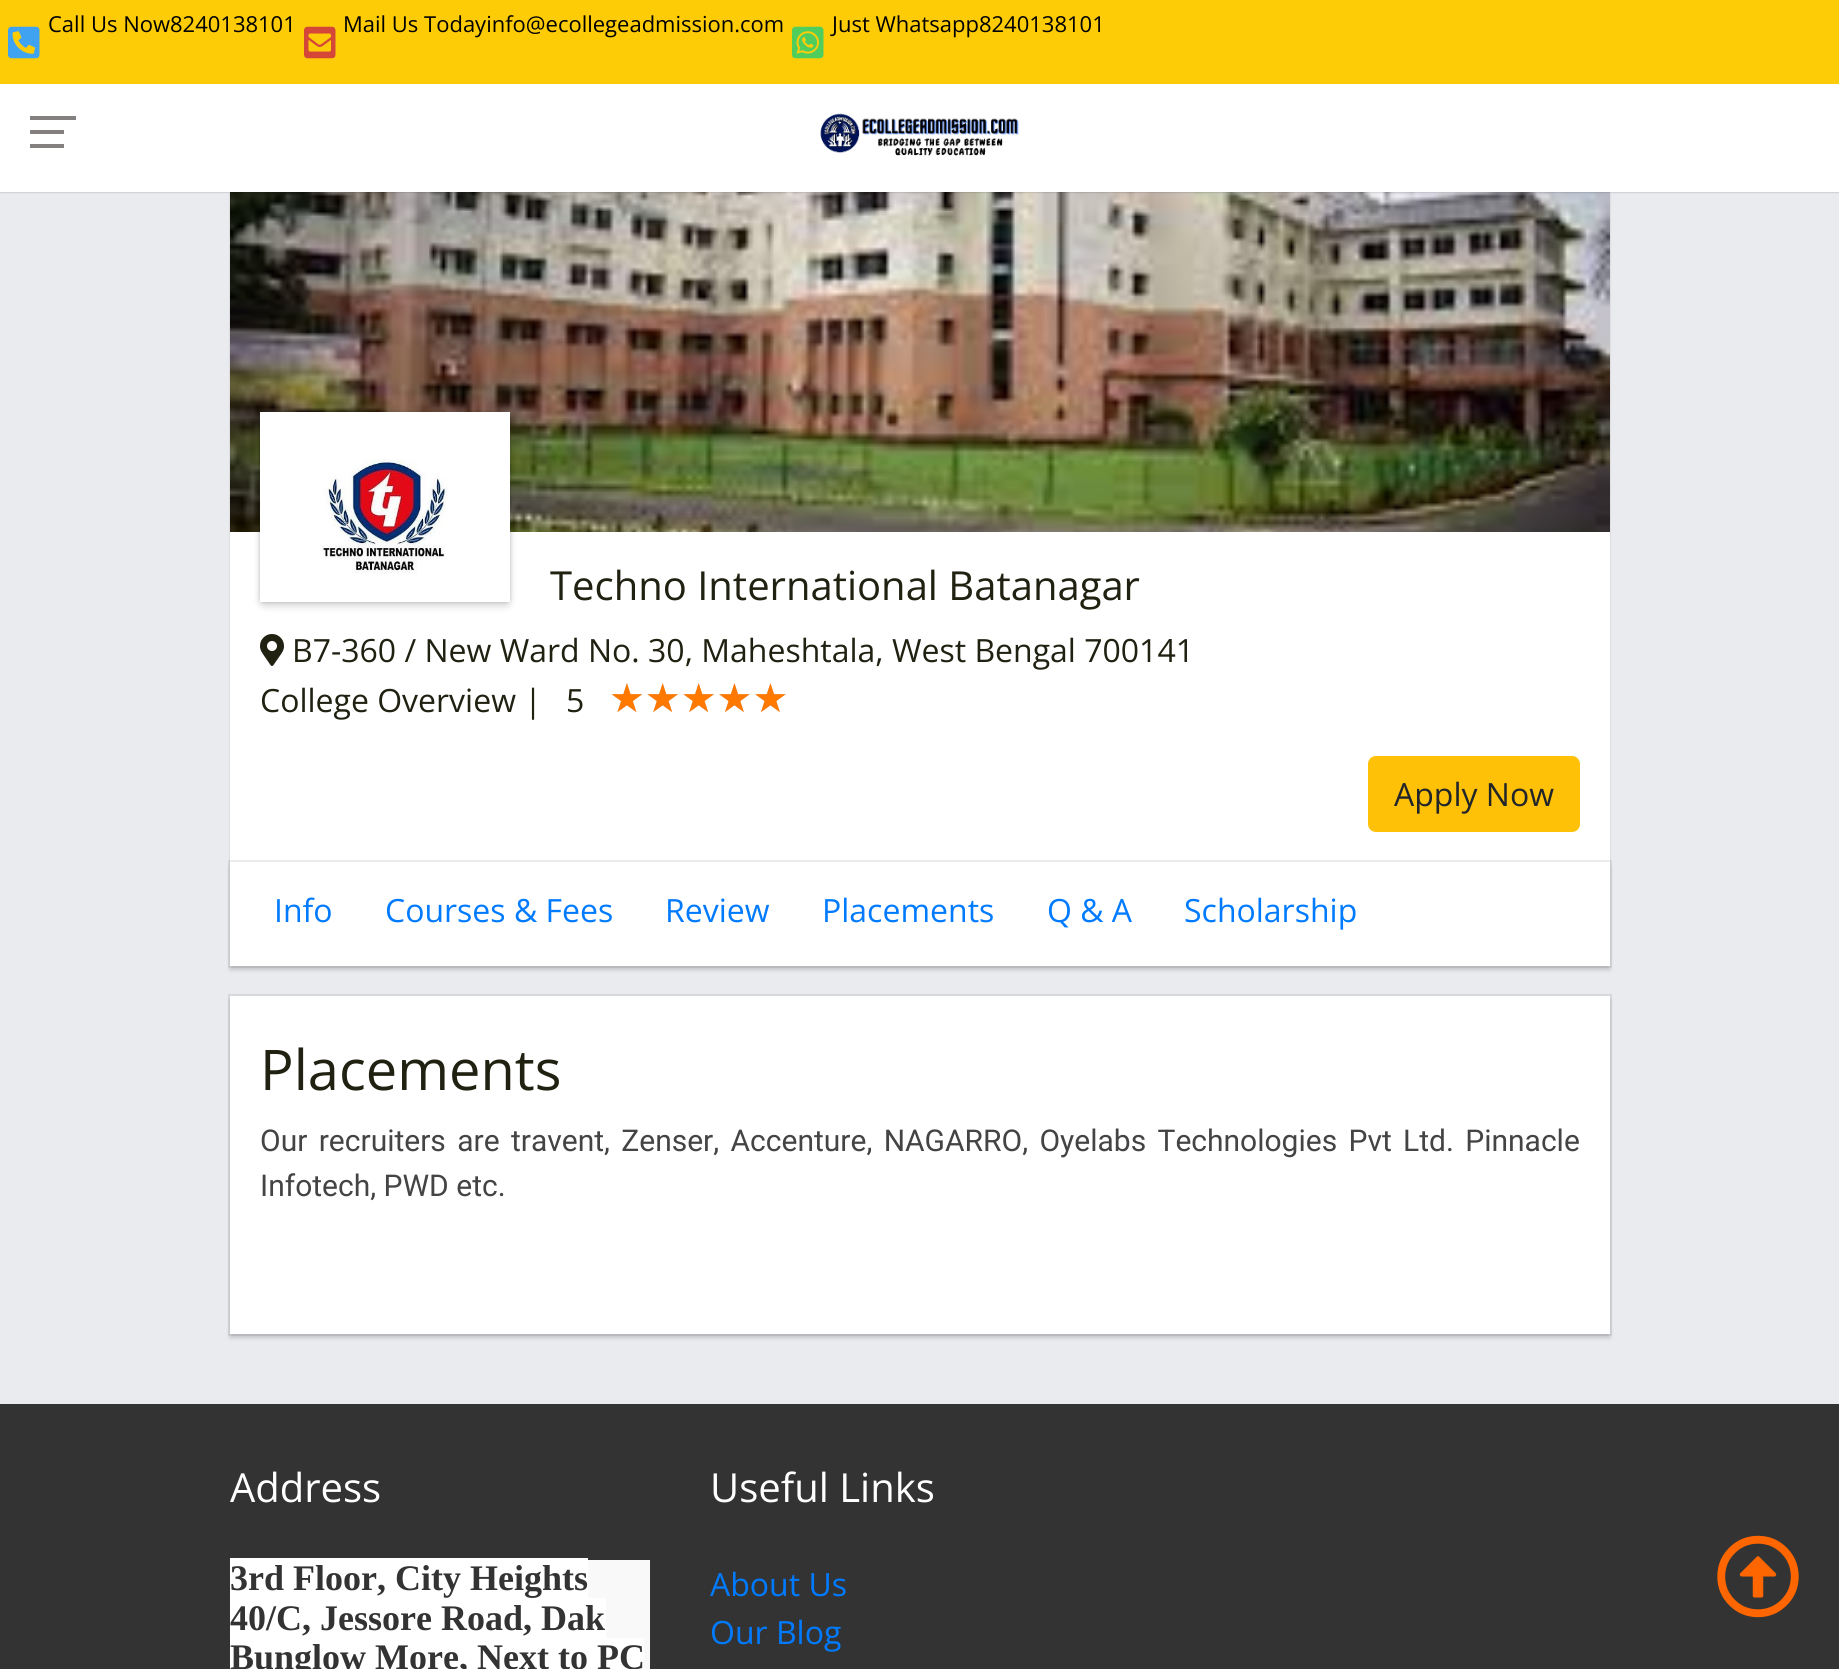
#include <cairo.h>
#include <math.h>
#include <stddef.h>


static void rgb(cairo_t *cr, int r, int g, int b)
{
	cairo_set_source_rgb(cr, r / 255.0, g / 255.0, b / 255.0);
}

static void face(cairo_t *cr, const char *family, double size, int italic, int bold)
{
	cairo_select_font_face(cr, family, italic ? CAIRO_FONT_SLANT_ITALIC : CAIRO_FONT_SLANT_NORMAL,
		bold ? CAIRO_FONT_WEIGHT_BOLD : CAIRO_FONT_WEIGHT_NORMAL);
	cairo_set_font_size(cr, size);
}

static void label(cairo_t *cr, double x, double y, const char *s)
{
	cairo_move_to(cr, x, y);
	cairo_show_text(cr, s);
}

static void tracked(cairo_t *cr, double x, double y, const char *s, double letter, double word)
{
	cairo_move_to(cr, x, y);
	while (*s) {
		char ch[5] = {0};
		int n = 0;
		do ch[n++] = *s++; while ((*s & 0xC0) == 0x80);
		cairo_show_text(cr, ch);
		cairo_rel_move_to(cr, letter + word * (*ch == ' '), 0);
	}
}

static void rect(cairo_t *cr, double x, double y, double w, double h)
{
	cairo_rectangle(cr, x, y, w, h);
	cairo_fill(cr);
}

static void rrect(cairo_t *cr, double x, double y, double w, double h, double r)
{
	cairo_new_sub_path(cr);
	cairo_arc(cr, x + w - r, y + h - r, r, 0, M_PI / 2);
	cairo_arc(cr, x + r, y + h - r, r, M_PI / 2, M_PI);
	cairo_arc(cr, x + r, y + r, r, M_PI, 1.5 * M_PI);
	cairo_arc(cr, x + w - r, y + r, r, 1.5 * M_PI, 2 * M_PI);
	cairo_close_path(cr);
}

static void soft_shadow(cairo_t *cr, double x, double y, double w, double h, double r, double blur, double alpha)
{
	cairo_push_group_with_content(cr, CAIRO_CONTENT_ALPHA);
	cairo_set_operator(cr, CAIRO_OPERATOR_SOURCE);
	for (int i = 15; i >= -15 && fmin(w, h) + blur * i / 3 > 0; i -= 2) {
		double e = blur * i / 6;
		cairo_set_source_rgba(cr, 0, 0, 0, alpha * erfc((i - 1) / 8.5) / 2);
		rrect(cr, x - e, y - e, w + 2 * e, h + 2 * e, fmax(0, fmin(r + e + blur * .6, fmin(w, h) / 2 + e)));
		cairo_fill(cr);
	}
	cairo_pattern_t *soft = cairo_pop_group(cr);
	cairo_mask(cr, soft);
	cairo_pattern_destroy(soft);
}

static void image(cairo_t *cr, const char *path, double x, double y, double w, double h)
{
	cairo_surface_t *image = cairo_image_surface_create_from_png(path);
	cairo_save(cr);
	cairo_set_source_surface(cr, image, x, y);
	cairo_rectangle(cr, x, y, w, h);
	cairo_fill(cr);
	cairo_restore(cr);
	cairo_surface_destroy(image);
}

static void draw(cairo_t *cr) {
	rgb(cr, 233, 235, 239);
	cairo_paint(cr);
	rgb(cr, 171, 171, 171);
	soft_shadow(cr, 230, 194, 1380, 670, 0, 1, 0.5);
	image(cr, "image4.png", 230, 192, 1380, 340);
	rgb(cr, 0, 0, 0);
	soft_shadow(cr, 0, 0, 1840, 192, 0, 1, 0.3);
	rgb(cr, 255, 255, 255);
	rect(cr, 0, 84, 1839, 108);
	rgb(cr, 254, 204, 7);
	rect(cr, 0, 0, 1839, 84);
	face(cr, "Open Sans", 22, 0, 0);
	rgb(cr, 0, 0, 0);
	label(cr, 48, 32, "Call Us Now8240138101");
	image(cr, "image0.png", 8, 26, 32, 33);
	image(cr, "image1.png", 304, 26, 32, 33);
	label(cr, 343, 32, "Mail Us Todayinfo@ecollegeadmission.com");
	image(cr, "image2.png", 792, 26, 32, 33);
	label(cr, 832, 32, "Just Whatsapp8240138101");
	rgb(cr, 132, 128, 128);
	rect(cr, 30, 130, 34, 4);
	rect(cr, 30, 116, 46, 4);
	rect(cr, 30, 144, 34, 4);
	image(cr, "image3.png", 820, 113, 199, 43);
	rgb(cr, 255, 255, 255);
	rect(cr, 230, 532, 1380, 330);
	rgb(cr, 0, 0, 0);
	soft_shadow(cr, 260, 416, 250, 190, 4, 4, 0.16);
	soft_shadow(cr, 260, 412, 250, 190, 4, 2, 0.16);
	rgb(cr, 255, 255, 255);
	cairo_rectangle(cr, 264, 416, 242, 182);
	cairo_fill_preserve(cr);
	cairo_set_line_width(cr, 8);
	cairo_stroke(cr);
	image(cr, "image5.png", 320, 459, 128, 115);
	face(cr, "Open Sans", 40, 0, 0);
	rgb(cr, 33, 33, 18);
	label(cr, 550, 600, "Techno International Batanagar");
	image(cr, "image6.png", 260, 634, 24, 32);
	face(cr, "Open Sans", 32, 0, 0);
	label(cr, 292, 662, "B7-360 / New Ward No. 30, Maheshtala, West Bengal 700141");
	label(cr, 260, 712, "College Overview |");
	label(cr, 566, 712, "5");
	face(cr, "DejaVu Sans", 40, 0, 0);
	rgb(cr, 204, 204, 204);
	label(cr, 609, 712, "★★★★★");
	rgb(cr, 255, 121, 0);
	label(cr, 609, 712, "★★★★★");
	rgb(cr, 255, 193, 7);
	rrect(cr, 1369, 757, 210, 74, 7);
	cairo_fill_preserve(cr);
	cairo_set_line_width(cr, 2);
	cairo_stroke(cr);
	face(cr, "Open Sans", 32, 0, 0);
	rgb(cr, 33, 37, 41);
	label(cr, 1394, 806, "Apply Now");
	cairo_rectangle(cr, 229, 861, 1382, 106);
	cairo_set_source_rgba(cr, 0, 0, 0, 0.08);
	cairo_stroke(cr);
	rgb(cr, 0, 0, 0);
	soft_shadow(cr, 230, 866, 1380, 104, 0, 2, 0.16);
	rgb(cr, 255, 255, 255);
	rect(cr, 230, 862, 1380, 104);
	rgb(cr, 0, 123, 255);
	label(cr, 274, 922, "Info");
	label(cr, 385, 922, "Courses & Fees");
	label(cr, 665, 922, "Review");
	label(cr, 822, 922, "Placements");
	label(cr, 1047, 922, "Q & A");
	label(cr, 1184, 922, "Scholarship");
	cairo_rectangle(cr, 229, 995, 1382, 340);
	rgb(cr, 214, 216, 220);
	cairo_stroke(cr);
	rgb(cr, 0, 0, 0);
	soft_shadow(cr, 230, 1000, 1380, 338, 0, 2, 0.16);
	rgb(cr, 255, 255, 255);
	rect(cr, 230, 996, 1380, 338);
	face(cr, "Open Sans", 56, 0, 0);
	rgb(cr, 33, 33, 18);
	label(cr, 260, 1090, "Placements");
	face(cr, "Roboto", 30, 0, 0);
	rgb(cr, 68, 68, 68);
	tracked(cr, 260, 1151, "Our recruiters are travent, Zenser, Accenture, NAGARRO, Oyelabs Technologies Pvt Ltd. Pinnacle", 0, 3.9);
	label(cr, 260, 1196, "Infotech, PWD etc.");
	rgb(cr, 51, 51, 51);
	rect(cr, 0, 1404, 1839, 265);
	face(cr, "Open Sans", 40, 0, 0);
	rgb(cr, 255, 255, 255);
	label(cr, 230, 1502, "Address");
	rgb(cr, 249, 249, 249);
	rect(cr, 588, 1560, 62, 109);
	rgb(cr, 255, 255, 255);
	rect(cr, 230, 1558, 358, 40);
	face(cr, "Liberation Serif", 36, 0, 1);
	rgb(cr, 51, 51, 51);
	label(cr, 230, 1590, "3rd Floor, City Heights");
	rgb(cr, 255, 255, 255);
	rect(cr, 230, 1598, 376, 40);
	rgb(cr, 51, 51, 51);
	label(cr, 230, 1630, "40/C, Jessore Road, Dak");
	rgb(cr, 255, 255, 255);
	rect(cr, 230, 1638, 414, 31);
	rgb(cr, 51, 51, 51);
	label(cr, 230, 1669, "Bunglow More, Next to PC");
	face(cr, "Open Sans", 40, 0, 0);
	rgb(cr, 255, 255, 255);
	label(cr, 710, 1502, "Useful Links");
	face(cr, "Open Sans", 32, 0, 0);
	rgb(cr, 0, 123, 255);
	label(cr, 710, 1596, "About Us");
	label(cr, 710, 1644, "Our Blog");
	image(cr, "image7.png", 1717, 1535, 82, 83);
}

int main(void) {
	cairo_surface_t *surface = cairo_image_surface_create(CAIRO_FORMAT_RGB24, 1839, 1669);
	cairo_t *cr = cairo_create(surface);
	cairo_font_options_t *options = cairo_font_options_create();
	cairo_font_options_set_hint_metrics(options, CAIRO_HINT_METRICS_OFF);
	cairo_font_options_set_hint_style(options, CAIRO_HINT_STYLE_NONE);
	cairo_set_font_options(cr, options);
	cairo_set_miter_limit(cr, 4);
	draw(cr);
	cairo_surface_write_to_png(surface, "render.png");
	cairo_font_options_destroy(options);
	cairo_destroy(cr);
	cairo_surface_destroy(surface);
	return 0;
}
